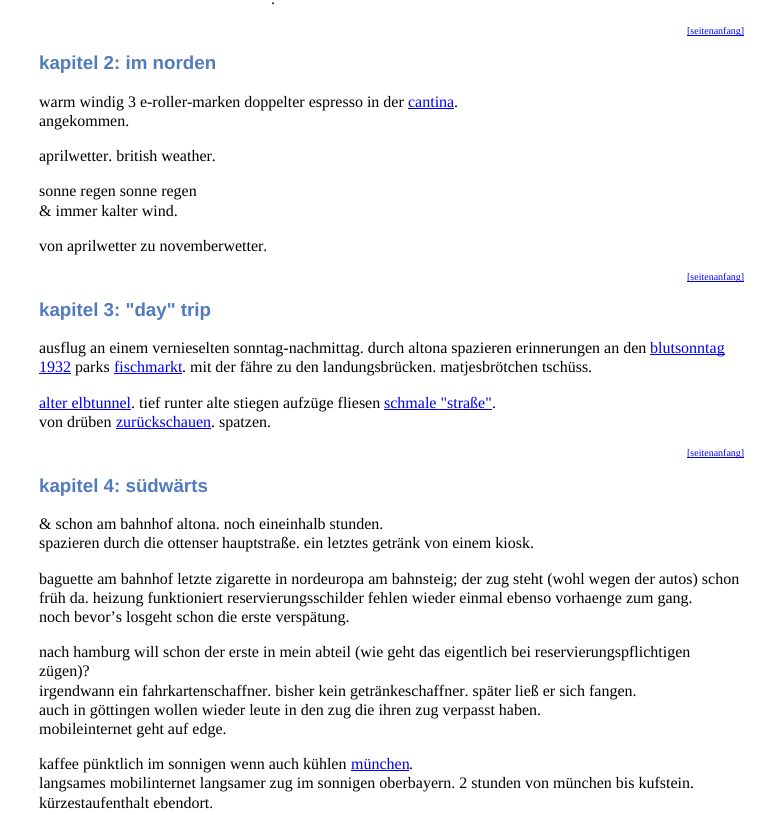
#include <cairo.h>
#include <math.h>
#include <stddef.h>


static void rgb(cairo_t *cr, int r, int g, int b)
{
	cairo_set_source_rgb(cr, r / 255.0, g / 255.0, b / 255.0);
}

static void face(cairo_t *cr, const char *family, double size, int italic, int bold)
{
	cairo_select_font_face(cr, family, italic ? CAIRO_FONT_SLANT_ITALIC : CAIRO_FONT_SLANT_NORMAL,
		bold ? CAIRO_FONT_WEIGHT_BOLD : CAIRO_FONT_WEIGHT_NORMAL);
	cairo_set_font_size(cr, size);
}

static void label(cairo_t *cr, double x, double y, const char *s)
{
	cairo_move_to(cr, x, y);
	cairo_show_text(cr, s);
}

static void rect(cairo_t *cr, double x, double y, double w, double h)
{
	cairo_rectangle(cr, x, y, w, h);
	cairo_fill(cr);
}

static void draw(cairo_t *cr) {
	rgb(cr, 255, 255, 255);
	cairo_paint(cr);
	face(cr, "Liberation Serif", 16, 0, 0);
	rgb(cr, 0, 0, 0);
	label(cr, 271, 4, ".");
	rgb(cr, 0, 0, 238);
	rect(cr, 687, 35, 57, 1);
	face(cr, "Liberation Serif", 10, 0, 0);
	label(cr, 687, 34, "[seitenanfang]");
	face(cr, "Liberation Sans", 18.75, 0, 1);
	rgb(cr, 82, 123, 189);
	label(cr, 39, 69, "kapitel 2: im norden");
	face(cr, "Liberation Serif", 16, 0, 0);
	rgb(cr, 0, 0, 0);
	label(cr, 39, 107, "warm windig 3 e-roller-marken doppelter espresso in der");
	rgb(cr, 0, 0, 238);
	label(cr, 408, 107, "cantina");
	rect(cr, 408, 108, 46, 1);
	rgb(cr, 0, 0, 0);
	label(cr, 454, 107, ".");
	label(cr, 39, 126, "angekommen.");
	label(cr, 39, 161, "aprilwetter. british weather.");
	label(cr, 39, 196, "sonne regen sonne regen");
	label(cr, 39, 216, "& immer kalter wind.");
	label(cr, 39, 251, "von aprilwetter zu novemberwetter.");
	rgb(cr, 0, 0, 238);
	rect(cr, 687, 281, 57, 1);
	face(cr, "Liberation Serif", 10, 0, 0);
	label(cr, 687, 280, "[seitenanfang]");
	face(cr, "Liberation Sans", 18.75, 0, 1);
	rgb(cr, 82, 123, 189);
	label(cr, 39, 316, "kapitel 3: \"day\" trip");
	face(cr, "Liberation Serif", 16, 0, 0);
	rgb(cr, 0, 0, 0);
	label(cr, 39, 353, "ausflug an einem vernieselten sonntag-nachmittag. durch altona spazieren erinnerungen an den");
	rgb(cr, 0, 0, 238);
	rect(cr, 650, 354, 75, 1);
	label(cr, 650, 353, "blutsonntag");
	label(cr, 39, 372, "1932");
	rect(cr, 39, 373, 32, 1);
	rgb(cr, 0, 0, 0);
	label(cr, 75, 372, "parks");
	rgb(cr, 0, 0, 238);
	label(cr, 114, 372, "fischmarkt");
	rect(cr, 114, 373, 68, 1);
	rgb(cr, 0, 0, 0);
	label(cr, 182, 372, ". mit der fähre zu den landungsbrücken. matjesbrötchen tschüss.");
	rgb(cr, 0, 0, 238);
	label(cr, 39, 408, "alter elbtunnel");
	rect(cr, 39, 409, 92, 1);
	rgb(cr, 0, 0, 0);
	label(cr, 131, 408, ". tief runter alte stiegen aufzüge fliesen");
	rgb(cr, 0, 0, 238);
	label(cr, 384, 408, "schmale \"straße\"");
	rect(cr, 384, 409, 108, 1);
	rgb(cr, 0, 0, 0);
	label(cr, 492, 408, ".");
	label(cr, 39, 427, "von drüben");
	rgb(cr, 0, 0, 238);
	label(cr, 116, 427, "zurückschauen");
	rect(cr, 116, 428, 95, 1);
	rgb(cr, 0, 0, 0);
	label(cr, 211, 427, ". spatzen.");
	rgb(cr, 0, 0, 238);
	rect(cr, 687, 457, 57, 1);
	face(cr, "Liberation Serif", 10, 0, 0);
	label(cr, 687, 456, "[seitenanfang]");
	face(cr, "Liberation Sans", 18.75, 0, 1);
	rgb(cr, 82, 123, 189);
	label(cr, 39, 492, "kapitel 4: südwärts");
	face(cr, "Liberation Serif", 16, 0, 0);
	rgb(cr, 0, 0, 0);
	label(cr, 39, 529, "& schon am bahnhof altona. noch eineinhalb stunden.");
	label(cr, 39, 548, "spazieren durch die ottenser hauptstraße. ein letztes getränk von einem kiosk.");
	label(cr, 39, 584, "baguette am bahnhof letzte zigarette in nordeuropa am bahnsteig; der zug steht (wohl wegen der autos) schon");
	label(cr, 39, 603, "früh da. heizung funktioniert reservierungsschilder fehlen wieder einmal ebenso vorhaenge zum gang.");
	label(cr, 39, 622, "noch bevor’s losgeht schon die erste verspätung.");
	label(cr, 39, 657, "nach hamburg will schon der erste in mein abteil (wie geht das eigentlich bei reservierungspflichtigen");
	label(cr, 39, 676, "zügen)?");
	label(cr, 39, 696, "irgendwann ein fahrkartenschaffner. bisher kein getränkeschaffner. später ließ er sich fangen.");
	label(cr, 39, 715, "auch in göttingen wollen wieder leute in den zug die ihren zug verpasst haben.");
	label(cr, 39, 734, "mobileinternet geht auf edge.");
	label(cr, 39, 769, "kaffee pünktlich im sonnigen wenn auch kühlen");
	rgb(cr, 0, 0, 238);
	label(cr, 351, 769, "münchen");
	rect(cr, 351, 770, 58, 1);
	rgb(cr, 0, 0, 0);
	label(cr, 409, 769, ".");
	label(cr, 39, 788, "langsames mobilinternet langsamer zug im sonnigen oberbayern. 2 stunden von münchen bis kufstein.");
	label(cr, 39, 808, "kürzestaufenthalt ebendort.");
}

int main(void) {
	cairo_surface_t *surface = cairo_image_surface_create(CAIRO_FORMAT_RGB24, 783, 815);
	cairo_t *cr = cairo_create(surface);
	cairo_font_options_t *options = cairo_font_options_create();
	cairo_font_options_set_hint_metrics(options, CAIRO_HINT_METRICS_OFF);
	cairo_font_options_set_hint_style(options, CAIRO_HINT_STYLE_NONE);
	cairo_set_font_options(cr, options);
	cairo_set_miter_limit(cr, 4);
	draw(cr);
	cairo_surface_write_to_png(surface, "render.png");
	cairo_font_options_destroy(options);
	cairo_destroy(cr);
	cairo_surface_destroy(surface);
	return 0;
}
